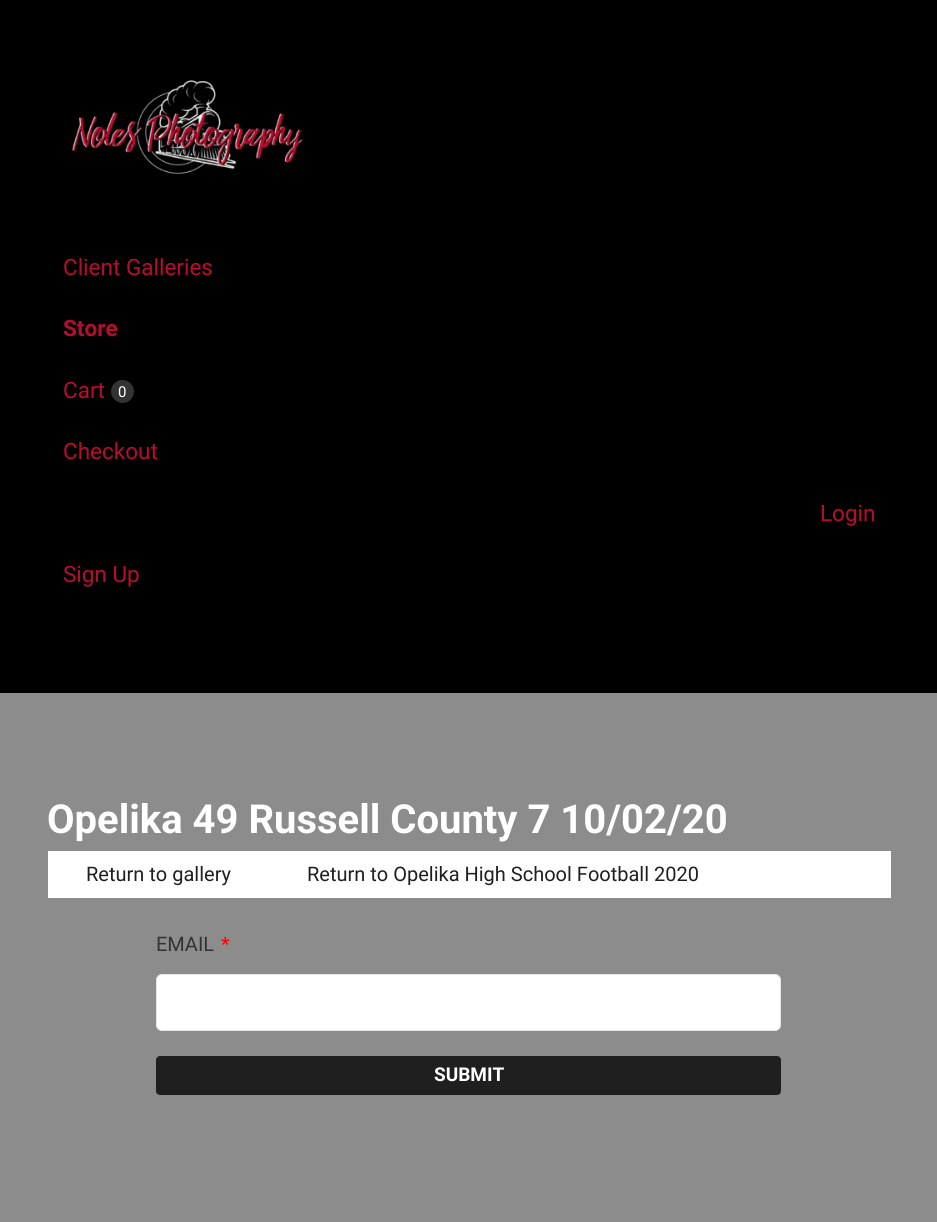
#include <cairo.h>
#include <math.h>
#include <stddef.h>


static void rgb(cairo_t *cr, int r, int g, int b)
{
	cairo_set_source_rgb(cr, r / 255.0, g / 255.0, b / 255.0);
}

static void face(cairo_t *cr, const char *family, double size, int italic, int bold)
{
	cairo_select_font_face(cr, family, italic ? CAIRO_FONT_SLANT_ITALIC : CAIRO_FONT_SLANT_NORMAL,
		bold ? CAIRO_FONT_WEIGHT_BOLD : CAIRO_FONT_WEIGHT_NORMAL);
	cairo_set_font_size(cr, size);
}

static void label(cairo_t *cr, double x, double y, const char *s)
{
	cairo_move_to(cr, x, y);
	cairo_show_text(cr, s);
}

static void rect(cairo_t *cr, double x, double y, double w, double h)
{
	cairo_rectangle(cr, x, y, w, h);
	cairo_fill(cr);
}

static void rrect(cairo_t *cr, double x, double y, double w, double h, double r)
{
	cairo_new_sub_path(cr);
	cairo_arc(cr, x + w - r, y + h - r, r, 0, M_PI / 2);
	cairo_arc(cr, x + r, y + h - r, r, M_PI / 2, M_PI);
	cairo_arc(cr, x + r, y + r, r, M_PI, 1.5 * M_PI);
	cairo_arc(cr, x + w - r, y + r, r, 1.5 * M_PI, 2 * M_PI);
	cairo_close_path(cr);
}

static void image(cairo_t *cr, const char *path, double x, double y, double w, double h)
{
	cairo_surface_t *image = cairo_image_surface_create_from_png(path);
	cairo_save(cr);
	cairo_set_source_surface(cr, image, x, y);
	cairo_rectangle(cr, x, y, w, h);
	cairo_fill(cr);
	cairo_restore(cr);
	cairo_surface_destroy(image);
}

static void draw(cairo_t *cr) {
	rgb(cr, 140, 140, 140);
	cairo_paint(cr);
	rgb(cr, 0, 0, 0);
	rect(cr, 0, 0, 937, 693);
	image(cr, "image0.png", 72, 80, 232, 94);
	face(cr, "Roboto", 22.5, 0, 0);
	rgb(cr, 186, 12, 47);
	label(cr, 63, 275, "Client Galleries");
	face(cr, "Roboto", 22.5, 0, 1);
	label(cr, 63, 336, "Store");
	face(cr, "Roboto", 22.5, 0, 0);
	label(cr, 63, 398, "Cart");
	rgb(cr, 51, 51, 51);
	cairo_new_path(cr);
	cairo_arc(cr, 122.5, 391.5, 11.5, 0, 2 * M_PI);
	cairo_fill(cr);
	face(cr, "Roboto", 15, 0, 0);
	rgb(cr, 255, 255, 255);
	label(cr, 118, 397, "0");
	face(cr, "Roboto", 22.5, 0, 0);
	rgb(cr, 186, 12, 47);
	label(cr, 63, 459, "Checkout");
	label(cr, 820, 521, "Login");
	label(cr, 63, 582, "Sign Up");
	face(cr, "Roboto", 40, 0, 1);
	rgb(cr, 255, 255, 255);
	label(cr, 47, 833, "Opelika 49 Russell County 7 10/02/20");
	rect(cr, 48, 851, 843, 47);
	face(cr, "Roboto", 20, 0, 0);
	rgb(cr, 31, 31, 31);
	label(cr, 86, 881, "Return to gallery");
	label(cr, 307, 881, "Return to Opelika High School Football 2020");
	rgb(cr, 51, 51, 51);
	label(cr, 156, 951, "EMAIL");
	rgb(cr, 255, 0, 0);
	label(cr, 221, 951, "*");
	rgb(cr, 255, 255, 255);
	rrect(cr, 156.5, 974.5, 624, 56, 5.5);
	cairo_fill_preserve(cr);
	rgb(cr, 230, 230, 230);
	cairo_set_line_width(cr, 1);
	cairo_stroke(cr);
	rgb(cr, 31, 31, 31);
	rrect(cr, 156, 1056, 625, 39, 4);
	cairo_fill(cr);
	face(cr, "Roboto", 19, 0, 1);
	rgb(cr, 255, 255, 255);
	label(cr, 434, 1081, "SUBMIT");
}

int main(void) {
	cairo_surface_t *surface = cairo_image_surface_create(CAIRO_FORMAT_RGB24, 937, 1222);
	cairo_t *cr = cairo_create(surface);
	cairo_font_options_t *options = cairo_font_options_create();
	cairo_font_options_set_hint_metrics(options, CAIRO_HINT_METRICS_OFF);
	cairo_font_options_set_hint_style(options, CAIRO_HINT_STYLE_NONE);
	cairo_set_font_options(cr, options);
	cairo_set_miter_limit(cr, 4);
	draw(cr);
	cairo_surface_write_to_png(surface, "render.png");
	cairo_font_options_destroy(options);
	cairo_destroy(cr);
	cairo_surface_destroy(surface);
	return 0;
}
